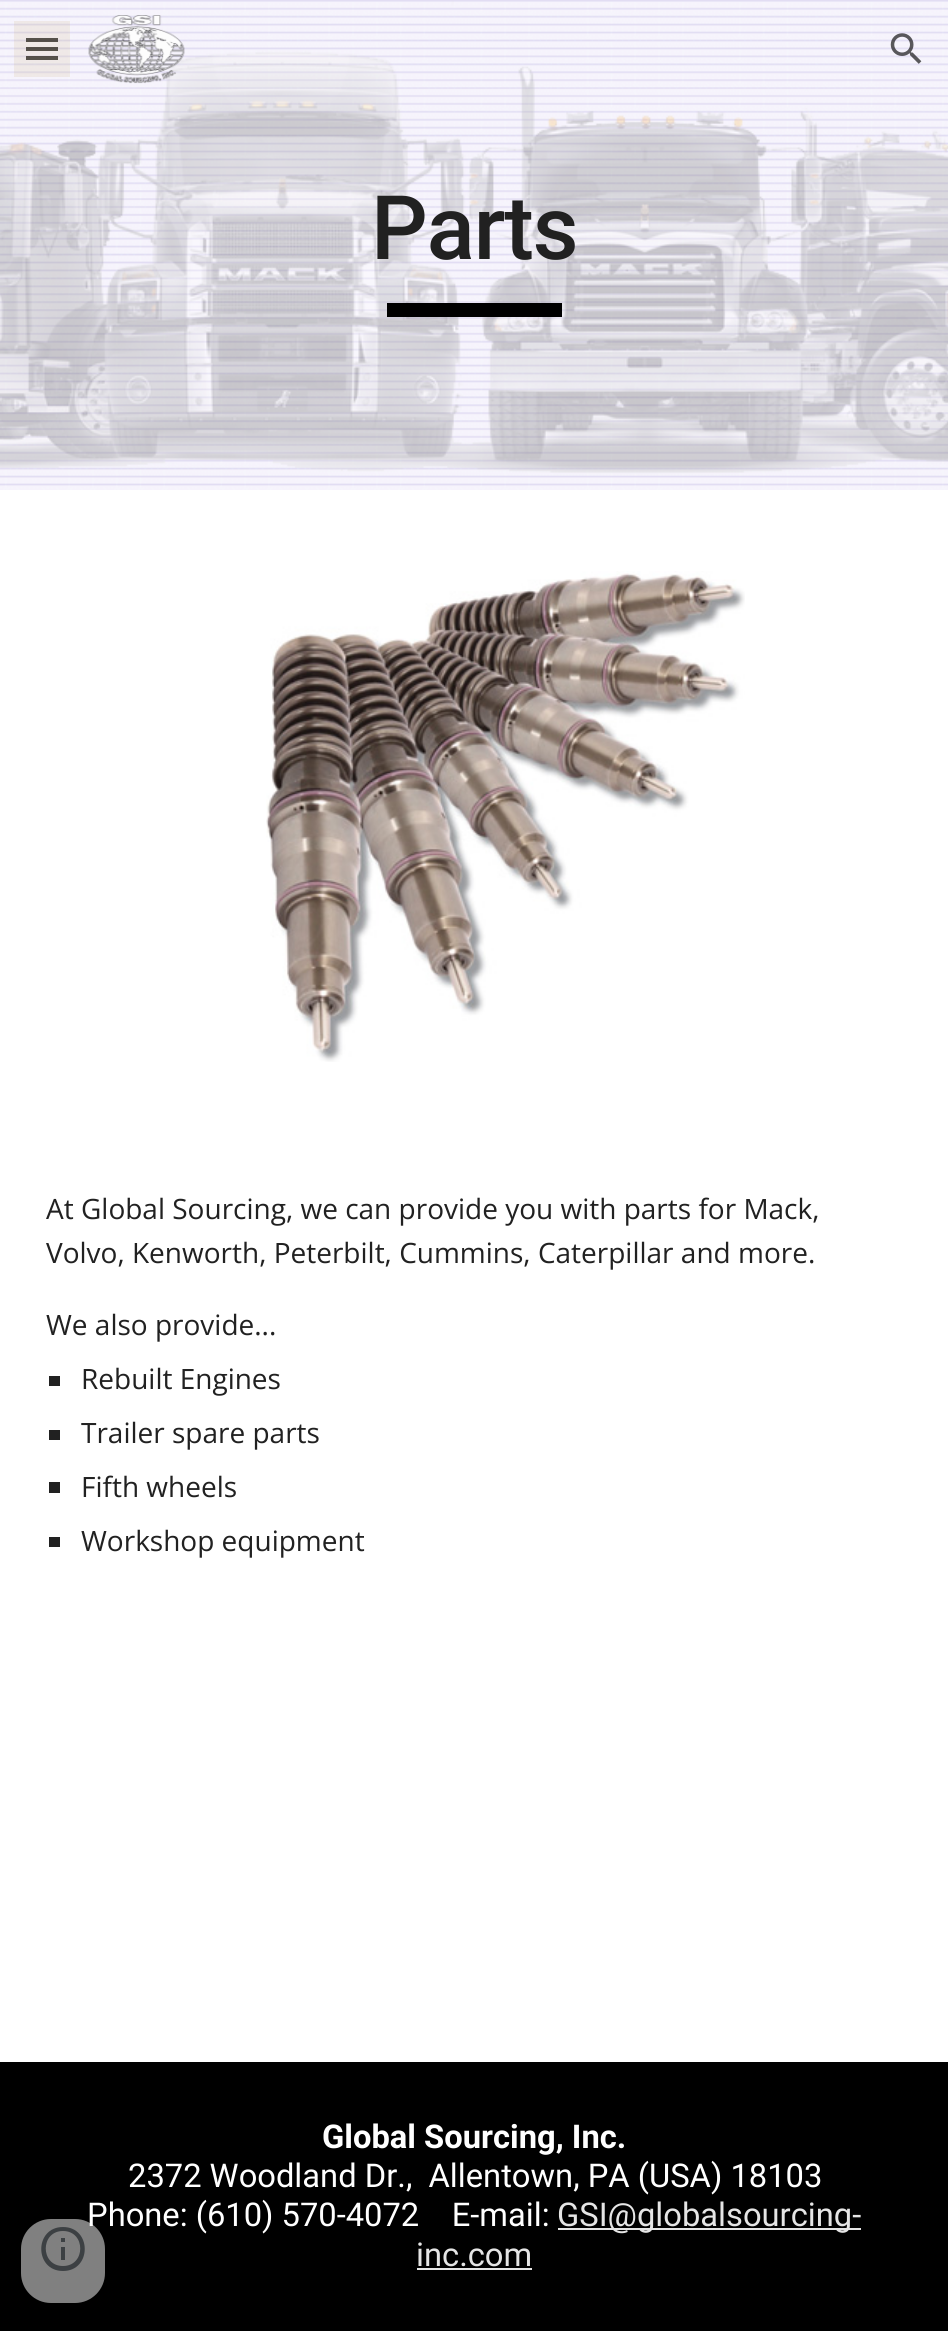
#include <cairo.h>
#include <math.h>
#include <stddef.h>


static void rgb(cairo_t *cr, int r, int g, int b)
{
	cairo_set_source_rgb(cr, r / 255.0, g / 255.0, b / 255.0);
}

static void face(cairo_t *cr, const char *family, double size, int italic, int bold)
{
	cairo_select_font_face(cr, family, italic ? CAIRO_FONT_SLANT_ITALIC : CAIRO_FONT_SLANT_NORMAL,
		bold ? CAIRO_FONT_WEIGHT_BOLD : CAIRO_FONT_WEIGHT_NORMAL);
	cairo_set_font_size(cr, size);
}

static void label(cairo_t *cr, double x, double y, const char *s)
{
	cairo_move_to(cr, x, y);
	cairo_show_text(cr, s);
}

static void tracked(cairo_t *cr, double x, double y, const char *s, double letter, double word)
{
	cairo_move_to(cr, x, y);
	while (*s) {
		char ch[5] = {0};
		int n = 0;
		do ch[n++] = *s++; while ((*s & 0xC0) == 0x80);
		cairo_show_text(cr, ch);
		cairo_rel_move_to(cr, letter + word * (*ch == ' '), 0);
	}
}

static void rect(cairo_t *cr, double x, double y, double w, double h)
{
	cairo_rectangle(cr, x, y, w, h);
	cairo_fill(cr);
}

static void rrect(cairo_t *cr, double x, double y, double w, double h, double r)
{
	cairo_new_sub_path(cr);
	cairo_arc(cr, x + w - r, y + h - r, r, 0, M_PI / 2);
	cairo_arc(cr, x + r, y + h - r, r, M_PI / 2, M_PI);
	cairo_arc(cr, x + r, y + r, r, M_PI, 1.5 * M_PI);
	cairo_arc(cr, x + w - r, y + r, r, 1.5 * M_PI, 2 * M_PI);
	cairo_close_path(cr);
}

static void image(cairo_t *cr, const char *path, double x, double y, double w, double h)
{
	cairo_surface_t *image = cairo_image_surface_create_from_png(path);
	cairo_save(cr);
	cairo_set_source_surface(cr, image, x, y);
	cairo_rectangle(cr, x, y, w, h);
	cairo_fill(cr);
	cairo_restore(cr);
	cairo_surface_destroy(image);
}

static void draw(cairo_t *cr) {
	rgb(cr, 255, 255, 255);
	cairo_paint(cr);
	image(cr, "image2.png", 0, 0, 948, 490);
	cairo_set_source_rgba(cr, 0, 0, 0, 0.7);
	rect(cr, 26, 38, 32, 4);
	rect(cr, 26, 47, 32, 4);
	rect(cr, 26, 56, 32, 4);
	cairo_set_source_rgba(cr, 0.718, 0.6, 0.318, 0.12);
	rect(cr, 14, 21, 56, 56);
	image(cr, "image0.png", 88, 15, 97, 69);
	image(cr, "image1.png", 890, 33, 32, 31);
	face(cr, "Roboto Medium", 89, 0, 0);
	rgb(cr, 33, 33, 33);
	tracked(cr, 371, 259, "Parts", -1, 0);
	rgb(cr, 0, 0, 0);
	rect(cr, 387, 303, 175, 14);
	image(cr, "image3.png", 266, 571, 479, 491);
	face(cr, "Open Sans", 28, 0, 0);
	rgb(cr, 33, 33, 33);
	label(cr, 46, 1219, "At Global Sourcing, we can provide you with parts for Mack,");
	label(cr, 46, 1263, "Volvo, Kenworth, Peterbilt, Cummins, Caterpillar and more.");
	label(cr, 46, 1335, "We also provide...");
	rect(cr, 49, 1376, 11, 10);
	label(cr, 81, 1389, "Rebuilt Engines");
	rect(cr, 49, 1430, 11, 10);
	label(cr, 81, 1443, "Trailer spare parts");
	rect(cr, 49, 1482, 11, 11);
	label(cr, 81, 1497, "Fifth wheels");
	rect(cr, 49, 1537, 11, 10);
	label(cr, 81, 1551, "Workshop equipment");
	rgb(cr, 0, 0, 0);
	rect(cr, 0, 2062, 948, 269);
	face(cr, "Roboto", 32.7, 0, 0);
	rgb(cr, 255, 255, 255);
	label(cr, 87, 2226, "Phone: (610) 570-4072    E-mail:");
	cairo_set_source_rgba(cr, 1, 1, 1, 0.5);
	rrect(cr, 21, 2219, 84, 84, 30);
	cairo_fill(cr);
	rgb(cr, 60, 64, 67);
	cairo_new_path(cr);
	cairo_move_to(cr, 61, 2260);
	cairo_line_to(cr, 65, 2260);
	cairo_line_to(cr, 65, 2247);
	cairo_line_to(cr, 61, 2247);
	cairo_close_path(cr);
	cairo_move_to(cr, 63, 2227);
	cairo_curve_to(cr, 34, 2227, 34, 2271, 63, 2271);
	cairo_curve_to(cr, 92, 2271, 92, 2227, 63, 2227);
	cairo_close_path(cr);
	cairo_move_to(cr, 63, 2266);
	cairo_curve_to(cr, 40, 2266, 40, 2231, 63, 2231);
	cairo_curve_to(cr, 86, 2231, 86, 2266, 63, 2266);
	cairo_close_path(cr);
	cairo_move_to(cr, 61, 2242);
	cairo_line_to(cr, 65, 2242);
	cairo_line_to(cr, 65, 2238);
	cairo_line_to(cr, 61, 2238);
	cairo_close_path(cr);
	cairo_fill(cr);
	face(cr, "Roboto", 32.7, 0, 1);
	rgb(cr, 255, 255, 255);
	label(cr, 322, 2148, "Global Sourcing, Inc.");
	face(cr, "Roboto", 32.7, 0, 0);
	label(cr, 128, 2187, "2372 Woodland Dr.,  Allentown, PA (USA) 18103");
	rgb(cr, 229, 229, 229);
	rect(cr, 558, 2228, 303, 2);
	label(cr, 557, 2226, "GSI@globalsourcing-");
	label(cr, 416, 2266, "inc.com");
	rect(cr, 417, 2268, 115, 2);
}

int main(void) {
	cairo_surface_t *surface = cairo_image_surface_create(CAIRO_FORMAT_RGB24, 948, 2331);
	cairo_t *cr = cairo_create(surface);
	cairo_font_options_t *options = cairo_font_options_create();
	cairo_font_options_set_hint_metrics(options, CAIRO_HINT_METRICS_OFF);
	cairo_font_options_set_hint_style(options, CAIRO_HINT_STYLE_NONE);
	cairo_set_font_options(cr, options);
	cairo_set_miter_limit(cr, 4);
	draw(cr);
	cairo_surface_write_to_png(surface, "render.png");
	cairo_font_options_destroy(options);
	cairo_destroy(cr);
	cairo_surface_destroy(surface);
	return 0;
}
